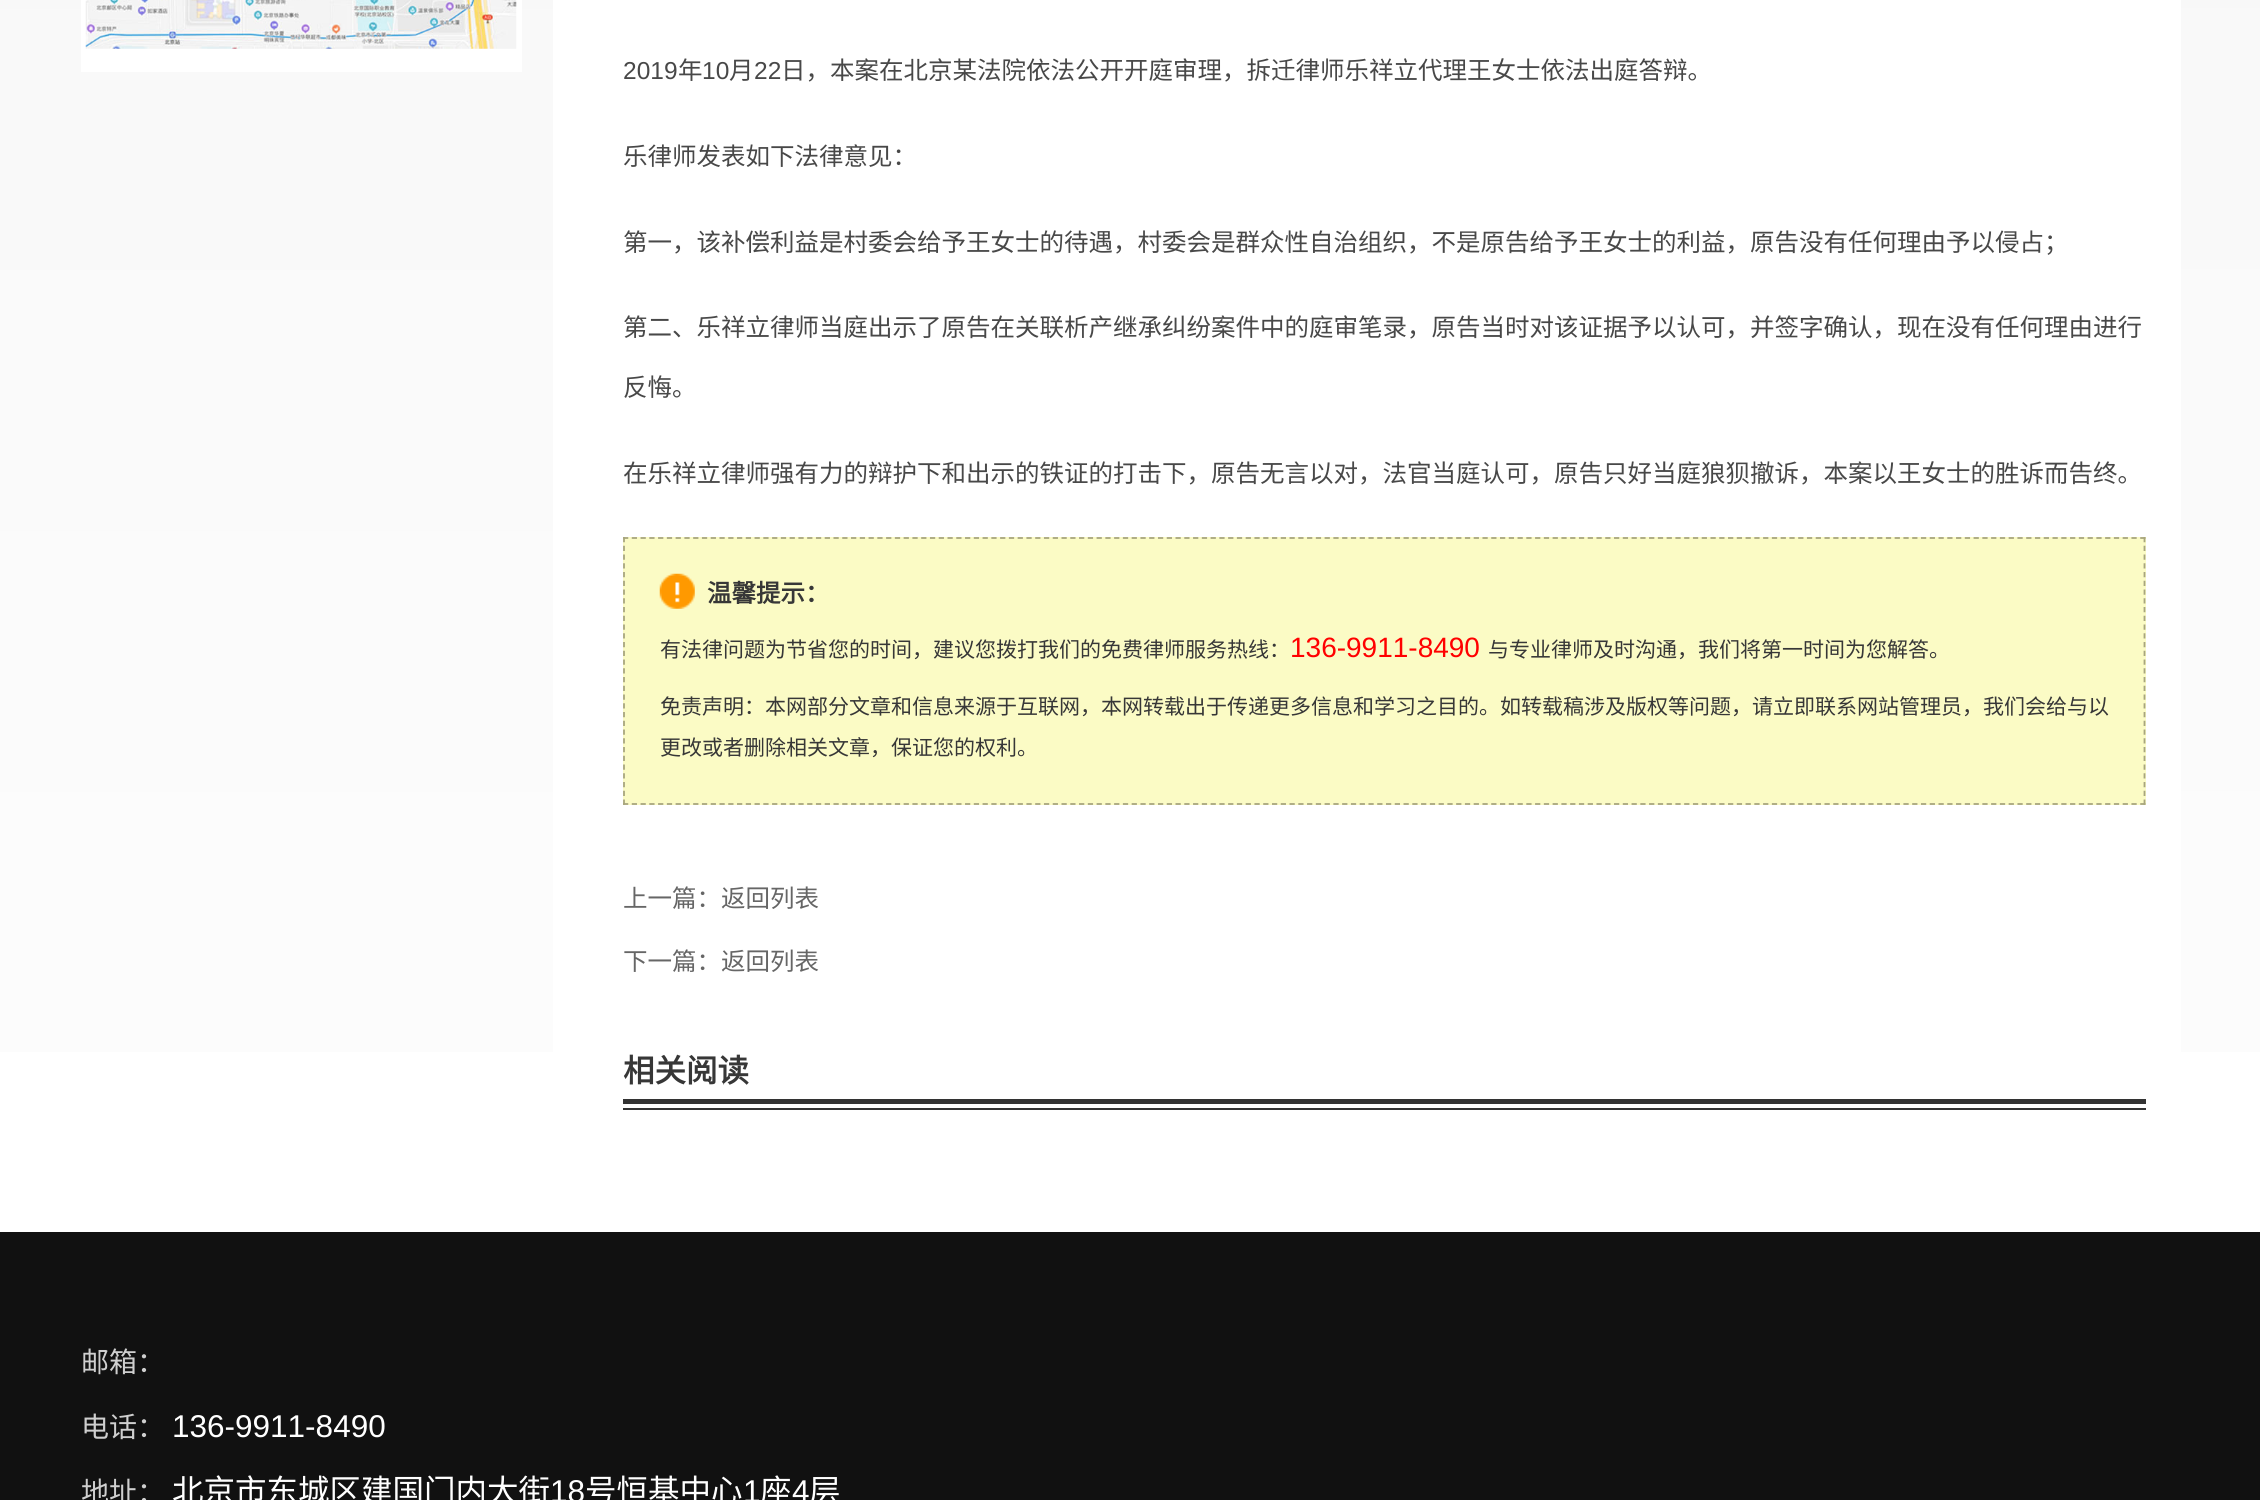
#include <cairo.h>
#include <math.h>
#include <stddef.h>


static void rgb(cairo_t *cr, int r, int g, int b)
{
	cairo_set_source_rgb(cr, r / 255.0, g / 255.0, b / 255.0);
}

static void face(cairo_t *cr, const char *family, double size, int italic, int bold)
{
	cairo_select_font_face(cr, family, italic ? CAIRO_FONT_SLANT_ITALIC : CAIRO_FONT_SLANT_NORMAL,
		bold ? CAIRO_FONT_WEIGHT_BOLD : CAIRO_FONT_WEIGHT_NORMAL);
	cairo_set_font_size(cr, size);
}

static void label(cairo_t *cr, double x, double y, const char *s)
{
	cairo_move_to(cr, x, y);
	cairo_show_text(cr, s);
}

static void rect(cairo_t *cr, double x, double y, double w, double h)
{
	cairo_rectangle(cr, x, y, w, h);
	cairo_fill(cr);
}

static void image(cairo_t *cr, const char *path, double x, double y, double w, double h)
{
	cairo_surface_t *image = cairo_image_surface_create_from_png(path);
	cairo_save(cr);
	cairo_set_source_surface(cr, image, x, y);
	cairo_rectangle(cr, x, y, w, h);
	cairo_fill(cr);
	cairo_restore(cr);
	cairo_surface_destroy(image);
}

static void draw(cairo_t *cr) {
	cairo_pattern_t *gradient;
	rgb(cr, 255, 255, 255);
	cairo_paint(cr);
	gradient = cairo_pattern_create_linear(1130, -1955, 1131, 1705);
	cairo_pattern_add_color_stop_rgba(gradient, 0, 0.945, 0.945, 0.945, 1);
	cairo_pattern_add_color_stop_rgba(gradient, 1, 1, 1, 1, 1);
	cairo_set_source(cr, gradient);
	cairo_pattern_destroy(gradient);
	rect(cr, 0, 0, 2260, 1052);
	rgb(cr, 255, 255, 255);
	rect(cr, 81, 0, 441, 72);
	image(cr, "image0.png", 85, 0, 432, 49);
	rect(cr, 553, 0, 1628, 1052);
	face(cr, "Liberation Sans", 24.5, 0, 0);
	rgb(cr, 72, 72, 72);
	label(cr, 623, 79, "2019");
	face(cr, "Noto Sans CJK SC", 24.5, 0, 0);
	label(cr, 678, 79, "年");
	face(cr, "Liberation Sans", 24.5, 0, 0);
	label(cr, 702, 79, "10");
	face(cr, "Noto Sans CJK SC", 24.5, 0, 0);
	label(cr, 729, 79, "月");
	face(cr, "Liberation Sans", 24.5, 0, 0);
	label(cr, 754, 79, "22");
	face(cr, "Noto Sans CJK SC", 24.5, 0, 0);
	label(cr, 781, 79, "日，本案在北京某法院依法公开开庭审理，拆迁律师乐祥立代理王女士依法出庭答辩。");
	label(cr, 623, 165, "乐律师发表如下法律意见：");
	label(cr, 623, 251, "第一，该补偿利益是村委会给予王女士的待遇，村委会是群众性自治组织，不是原告给予王女士的利益，原告没有任何理由予以侵占；");
	label(cr, 623, 336, "第二、乐祥立律师当庭出示了原告在关联析产继承纠纷案件中的庭审笔录，原告当时对该证据予以认可，并签字确认，现在没有任何理由进行");
	label(cr, 623, 396, "反悔。");
	label(cr, 623, 482, "在乐祥立律师强有力的辩护下和出示的铁证的打击下，原告无言以对，法官当庭认可，原告只好当庭狼狈撤诉，本案以王女士的胜诉而告终。");
	rgb(cr, 251, 251, 197);
	rect(cr, 623, 537, 1523, 268);
	cairo_new_path(cr);
	cairo_move_to(cr, 623, 538);
	cairo_line_to(cr, 2145.5, 538);
	rgb(cr, 167, 165, 126);
	cairo_set_line_width(cr, 1.8);
	cairo_set_dash(cr, (double[]){5.25, 3.52}, 2, 0);
	cairo_stroke(cr);
	cairo_new_path(cr);
	cairo_move_to(cr, 2144.5, 537);
	cairo_line_to(cr, 2144.5, 805);
	cairo_set_dash(cr, (double[]){5.25, 3.5}, 2, 0);
	cairo_stroke(cr);
	cairo_new_path(cr);
	cairo_move_to(cr, 623, 804);
	cairo_line_to(cr, 2145.5, 804);
	cairo_set_dash(cr, (double[]){5.25, 3.52}, 2, 0);
	cairo_stroke(cr);
	cairo_new_path(cr);
	cairo_move_to(cr, 624, 537);
	cairo_line_to(cr, 624, 805);
	cairo_set_dash(cr, (double[]){5.25, 3.5}, 2, 0);
	cairo_stroke(cr);
	image(cr, "image1.png", 659, 573, 36, 36);
	face(cr, "Noto Sans CJK SC", 24.5, 0, 1);
	rgb(cr, 55, 55, 55);
	label(cr, 707, 602, "温馨提示：");
	face(cr, "Noto Sans CJK SC", 21, 0, 0);
	label(cr, 660, 657, "有法律问题为节省您的时间，建议您拨打我们的免费律师服务热线：");
	face(cr, "Liberation Sans", 28, 0, 0);
	rgb(cr, 255, 0, 0);
	label(cr, 1290, 657, "136-9911-8490");
	face(cr, "Noto Sans CJK SC", 21, 0, 0);
	rgb(cr, 55, 55, 55);
	label(cr, 1488, 657, "与专业律师及时沟通，我们将第一时间为您解答。");
	label(cr, 660, 714, "免责声明：本网部分文章和信息来源于互联网，本网转载出于传递更多信息和学习之目的。如转载稿涉及版权等问题，请立即联系网站管理员，我们会给与以");
	label(cr, 660, 755, "更改或者删除相关文章，保证您的权利。");
	face(cr, "Noto Sans CJK SC", 24.5, 0, 0);
	rgb(cr, 102, 102, 102);
	label(cr, 623, 907, "上一篇：返回列表");
	label(cr, 623, 970, "下一篇：返回列表");
	rgb(cr, 51, 51, 51);
	rect(cr, 623, 1099, 1523, 5);
	face(cr, "Noto Sans CJK SC", 31.5, 0, 1);
	rgb(cr, 55, 55, 55);
	label(cr, 623, 1082, "相关阅读");
	rgb(cr, 51, 51, 51);
	rect(cr, 623, 1108, 1523, 2);
	rgb(cr, 17, 17, 17);
	rect(cr, 0, 1232, 2260, 268);
	face(cr, "Noto Sans CJK SC", 28, 0, 0);
	rgb(cr, 207, 207, 207);
	label(cr, 81, 1372, "邮箱：");
	label(cr, 81, 1437, "电话：");
	face(cr, "Liberation Sans", 31.5, 0, 0);
	rgb(cr, 255, 255, 255);
	label(cr, 172, 1437, "136-9911-8490");
	face(cr, "Noto Sans CJK SC", 28, 0, 0);
	rgb(cr, 207, 207, 207);
	label(cr, 81, 1502, "地址：");
	face(cr, "Noto Sans CJK SC", 31.5, 0, 0);
	rgb(cr, 255, 255, 255);
	label(cr, 172, 1502, "北京市东城区建国门内大街");
	face(cr, "Liberation Sans", 31.5, 0, 0);
	label(cr, 550, 1502, "18");
	face(cr, "Noto Sans CJK SC", 31.5, 0, 0);
	label(cr, 585, 1502, "号恒基中心");
	face(cr, "Liberation Sans", 31.5, 0, 0);
	label(cr, 743, 1502, "1");
	face(cr, "Noto Sans CJK SC", 31.5, 0, 0);
	label(cr, 760, 1502, "座");
	face(cr, "Liberation Sans", 31.5, 0, 0);
	label(cr, 792, 1502, "4");
	face(cr, "Noto Sans CJK SC", 31.5, 0, 0);
	label(cr, 809, 1502, "层");
}

int main(void) {
	cairo_surface_t *surface = cairo_image_surface_create(CAIRO_FORMAT_RGB24, 2260, 1500);
	cairo_t *cr = cairo_create(surface);
	cairo_font_options_t *options = cairo_font_options_create();
	cairo_font_options_set_hint_metrics(options, CAIRO_HINT_METRICS_OFF);
	cairo_font_options_set_hint_style(options, CAIRO_HINT_STYLE_NONE);
	cairo_set_font_options(cr, options);
	cairo_set_miter_limit(cr, 4);
	draw(cr);
	cairo_surface_write_to_png(surface, "render.png");
	cairo_font_options_destroy(options);
	cairo_destroy(cr);
	cairo_surface_destroy(surface);
	return 0;
}
